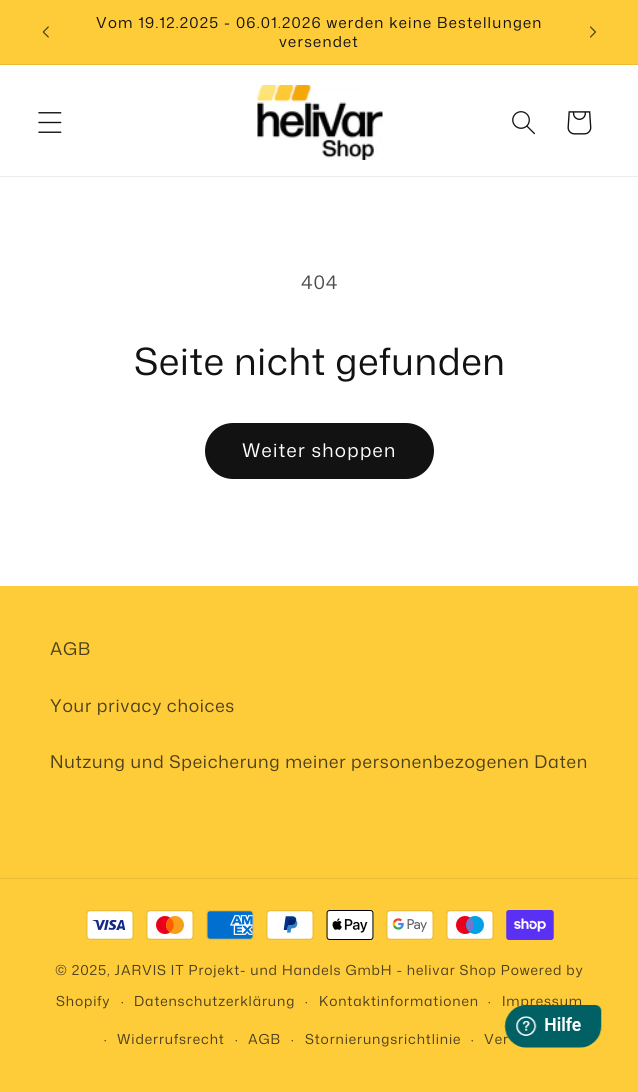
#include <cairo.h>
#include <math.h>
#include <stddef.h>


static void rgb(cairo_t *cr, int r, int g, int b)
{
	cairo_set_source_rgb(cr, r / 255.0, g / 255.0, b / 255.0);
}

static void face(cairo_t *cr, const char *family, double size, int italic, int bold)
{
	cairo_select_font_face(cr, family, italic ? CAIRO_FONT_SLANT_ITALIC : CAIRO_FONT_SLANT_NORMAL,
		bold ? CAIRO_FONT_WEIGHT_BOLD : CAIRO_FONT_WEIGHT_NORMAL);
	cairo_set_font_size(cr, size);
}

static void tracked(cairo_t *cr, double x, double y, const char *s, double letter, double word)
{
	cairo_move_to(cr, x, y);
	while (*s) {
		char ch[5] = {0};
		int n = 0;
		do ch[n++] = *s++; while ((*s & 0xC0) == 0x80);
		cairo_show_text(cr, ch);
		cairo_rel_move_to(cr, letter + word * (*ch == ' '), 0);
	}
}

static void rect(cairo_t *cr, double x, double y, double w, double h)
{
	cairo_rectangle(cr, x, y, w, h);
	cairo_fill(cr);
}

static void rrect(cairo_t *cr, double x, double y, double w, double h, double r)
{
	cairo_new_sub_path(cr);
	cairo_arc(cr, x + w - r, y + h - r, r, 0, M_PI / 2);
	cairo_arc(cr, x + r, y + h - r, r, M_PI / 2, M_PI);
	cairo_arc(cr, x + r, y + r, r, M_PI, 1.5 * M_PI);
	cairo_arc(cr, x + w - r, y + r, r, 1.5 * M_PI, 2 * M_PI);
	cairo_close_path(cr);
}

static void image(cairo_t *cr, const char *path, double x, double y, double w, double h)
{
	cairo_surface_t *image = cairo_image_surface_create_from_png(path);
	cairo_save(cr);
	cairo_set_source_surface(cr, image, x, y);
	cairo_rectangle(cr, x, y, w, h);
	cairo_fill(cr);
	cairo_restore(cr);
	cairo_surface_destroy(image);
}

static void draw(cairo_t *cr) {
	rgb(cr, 255, 255, 255);
	cairo_paint(cr);
	rgb(cr, 254, 203, 57);
	rect(cr, 0, 0, 638, 64);
	rgb(cr, 235, 188, 54);
	rect(cr, 0, 64, 638, 1);
	image(cr, "image0.png", 42, 26, 7, 12);
	face(cr, "Mona Sans", 15, 0, 0);
	rgb(cr, 18, 18, 18);
	tracked(cr, 96, 28, "Vom 19.12.2025 - 06.01.2026 werden keine Bestellungen", 1.25, 0);
	tracked(cr, 279, 47, "versendet", 1.25, 0);
	image(cr, "image1.png", 590, 26, 6, 12);
	rgb(cr, 236, 236, 236);
	rect(cr, 0, 176, 638, 1);
	image(cr, "image2.png", 38, 112, 24, 21);
	image(cr, "image3.png", 257, 85, 126, 75);
	image(cr, "image4.png", 512, 111, 23, 24);
	image(cr, "image5.png", 567, 111, 25, 24);
	face(cr, "Mona Sans", 18.75, 0, 0);
	rgb(cr, 77, 77, 77);
	tracked(cr, 301, 289, "404", 0.75, 0);
	face(cr, "Mona Sans", 37.5, 0, 0);
	rgb(cr, 18, 18, 18);
	tracked(cr, 134, 375, "Seite nicht gefunden", 0.75, 0);
	rrect(cr, 205, 423, 229, 56, 28);
	cairo_fill(cr);
	face(cr, "Mona Sans", 18.75, 0, 0);
	rgb(cr, 255, 255, 255);
	tracked(cr, 242, 457, "Weiter shoppen", 1.25, 0);
	rgb(cr, 254, 203, 57);
	rect(cr, 0, 586, 638, 506);
	face(cr, "Mona Sans", 17.5, 0, 0);
	rgb(cr, 77, 64, 28);
	tracked(cr, 50, 655, "AGB", 0.75, 0);
	tracked(cr, 50, 712, "Your privacy choices", 0.75, 0);
	tracked(cr, 50, 768, "Nutzung und Speicherung meiner personenbezogenen Daten", 0.75, 0);
	rgb(cr, 235, 188, 54);
	rect(cr, 0, 878, 638, 1);
	image(cr, "image6.png", 86, 910, 48, 30);
	image(cr, "image7.png", 146, 910, 48, 30);
	image(cr, "image8.png", 206, 910, 48, 30);
	image(cr, "image9.png", 266, 910, 48, 30);
	image(cr, "image10.png", 326, 910, 48, 30);
	image(cr, "image11.png", 386, 910, 48, 30);
	image(cr, "image12.png", 446, 910, 48, 30);
	image(cr, "image13.png", 506, 910, 48, 30);
	face(cr, "Mona Sans", 13.75, 0, 0);
	rgb(cr, 77, 64, 28);
	tracked(cr, 55, 975, "© 2025, JARVIS IT Projekt- und Handels GmbH - helivar Shop Powered by", 0.88, 0);
	tracked(cr, 56, 1006, "Shopify", 0.88, 0);
	face(cr, "Mona Sans", 12, 0, 0);
	tracked(cr, 121, 1006, "·", 0.88, 0);
	face(cr, "Mona Sans", 13.75, 0, 0);
	tracked(cr, 134, 1006, "Datenschutzerklärung", 0.88, 0);
	face(cr, "Mona Sans", 12, 0, 0);
	tracked(cr, 305, 1006, "·", 0.88, 0);
	face(cr, "Mona Sans", 13.75, 0, 0);
	tracked(cr, 319, 1006, "Kontaktinformationen", 0.88, 0);
	face(cr, "Mona Sans", 12, 0, 0);
	tracked(cr, 488, 1006, "·", 0.88, 0);
	face(cr, "Mona Sans", 13.75, 0, 0);
	tracked(cr, 502, 1006, "Impressum", 0.88, 0);
	face(cr, "Mona Sans", 12, 0, 0);
	tracked(cr, 104, 1044, "·", 0.88, 0);
	face(cr, "Mona Sans", 13.75, 0, 0);
	tracked(cr, 117, 1044, "Widerrufsrecht", 0.88, 0);
	face(cr, "Mona Sans", 12, 0, 0);
	tracked(cr, 235, 1044, "·", 0.88, 0);
	face(cr, "Mona Sans", 13.75, 0, 0);
	tracked(cr, 248, 1044, "AGB", 0.88, 0);
	face(cr, "Mona Sans", 12, 0, 0);
	tracked(cr, 291, 1044, "·", 0.88, 0);
	face(cr, "Mona Sans", 13.75, 0, 0);
	tracked(cr, 305, 1044, "Stornierungsrichtlinie", 0.88, 0);
	face(cr, "Mona Sans", 12, 0, 0);
	tracked(cr, 471, 1044, "·", 0.88, 0);
	face(cr, "Mona Sans", 13.75, 0, 0);
	tracked(cr, 484, 1044, "Ver", 0.88, 0);
	image(cr, "image14.png", 504, 1005, 98, 43);
}

int main(void) {
	cairo_surface_t *surface = cairo_image_surface_create(CAIRO_FORMAT_RGB24, 638, 1092);
	cairo_t *cr = cairo_create(surface);
	cairo_font_options_t *options = cairo_font_options_create();
	cairo_font_options_set_hint_metrics(options, CAIRO_HINT_METRICS_OFF);
	cairo_font_options_set_hint_style(options, CAIRO_HINT_STYLE_NONE);
	cairo_set_font_options(cr, options);
	cairo_set_miter_limit(cr, 4);
	draw(cr);
	cairo_surface_write_to_png(surface, "render.png");
	cairo_font_options_destroy(options);
	cairo_destroy(cr);
	cairo_surface_destroy(surface);
	return 0;
}
